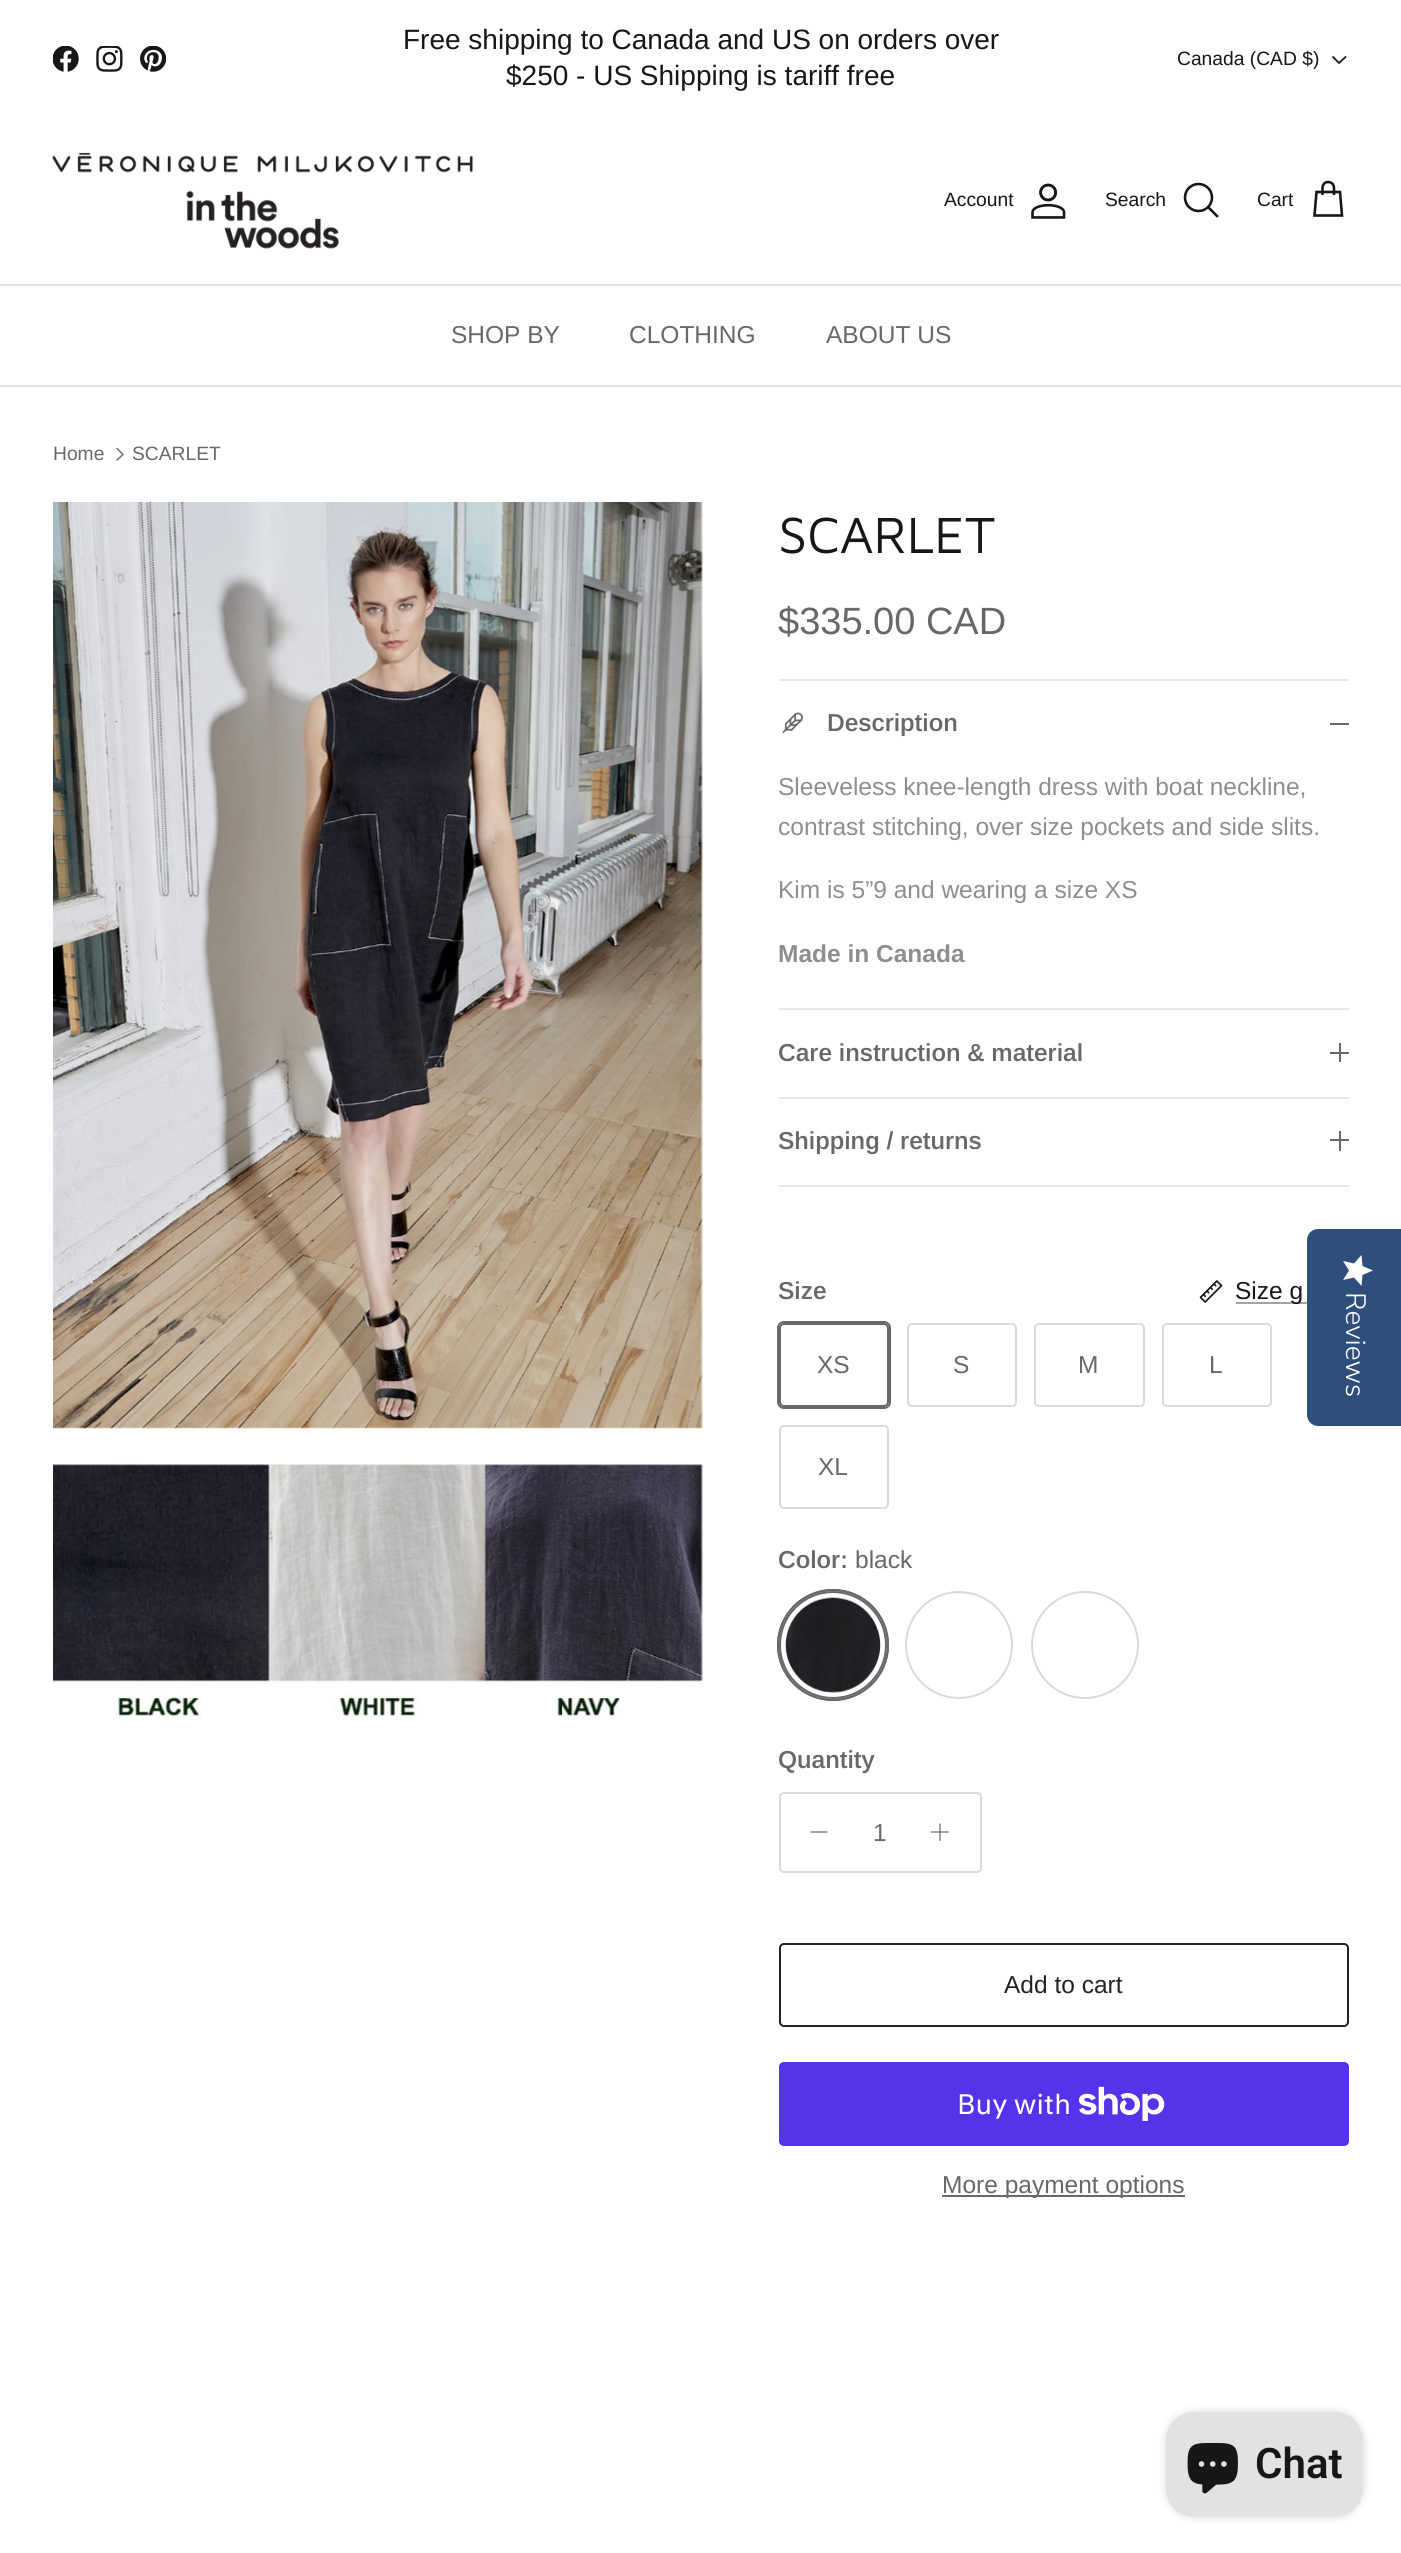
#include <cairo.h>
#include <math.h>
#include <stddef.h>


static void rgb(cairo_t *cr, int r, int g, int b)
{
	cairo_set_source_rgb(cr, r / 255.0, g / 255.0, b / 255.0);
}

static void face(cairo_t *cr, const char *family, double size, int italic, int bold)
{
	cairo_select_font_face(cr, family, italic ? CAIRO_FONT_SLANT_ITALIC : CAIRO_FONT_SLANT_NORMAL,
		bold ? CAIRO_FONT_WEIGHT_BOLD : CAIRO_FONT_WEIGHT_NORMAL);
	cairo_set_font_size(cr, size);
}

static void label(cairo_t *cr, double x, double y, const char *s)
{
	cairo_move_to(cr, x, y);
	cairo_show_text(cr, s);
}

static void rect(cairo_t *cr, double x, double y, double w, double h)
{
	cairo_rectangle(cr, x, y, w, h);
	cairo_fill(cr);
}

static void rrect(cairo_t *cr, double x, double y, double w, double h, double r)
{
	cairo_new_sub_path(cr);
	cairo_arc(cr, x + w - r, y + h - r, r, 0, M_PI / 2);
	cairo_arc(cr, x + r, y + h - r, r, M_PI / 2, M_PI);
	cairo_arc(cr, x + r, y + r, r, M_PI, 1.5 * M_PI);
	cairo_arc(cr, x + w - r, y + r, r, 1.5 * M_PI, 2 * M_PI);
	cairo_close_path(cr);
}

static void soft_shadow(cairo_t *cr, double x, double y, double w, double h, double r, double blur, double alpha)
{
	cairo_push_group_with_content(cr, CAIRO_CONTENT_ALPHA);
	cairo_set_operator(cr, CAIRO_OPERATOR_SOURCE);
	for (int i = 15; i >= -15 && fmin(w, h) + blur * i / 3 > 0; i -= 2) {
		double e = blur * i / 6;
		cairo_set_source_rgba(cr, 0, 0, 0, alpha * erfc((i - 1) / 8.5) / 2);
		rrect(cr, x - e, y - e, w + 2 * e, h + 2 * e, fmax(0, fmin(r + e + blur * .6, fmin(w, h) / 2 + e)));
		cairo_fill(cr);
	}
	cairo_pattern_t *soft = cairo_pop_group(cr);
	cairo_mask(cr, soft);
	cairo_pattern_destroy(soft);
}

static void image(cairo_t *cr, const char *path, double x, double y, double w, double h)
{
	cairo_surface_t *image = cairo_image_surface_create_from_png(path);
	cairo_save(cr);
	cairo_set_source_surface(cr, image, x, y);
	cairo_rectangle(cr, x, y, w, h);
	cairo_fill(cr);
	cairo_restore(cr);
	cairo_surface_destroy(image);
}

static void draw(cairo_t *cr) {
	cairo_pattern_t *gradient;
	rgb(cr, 255, 255, 255);
	cairo_paint(cr);
	image(cr, "image0.png", 53, 46, 26, 26);
	image(cr, "image1.png", 96, 46, 27, 26);
	image(cr, "image2.png", 140, 46, 26, 26);
	face(cr, "Arimo", 28, 0, 0);
	rgb(cr, 23, 23, 23);
	label(cr, 403, 49, "Free shipping to Canada and US on orders over");
	label(cr, 506, 85, "$250 - US Shipping is tariff free");
	face(cr, "Arimo", 19.25, 0, 0);
	label(cr, 1177, 65, "Canada (CAD $)");
	cairo_new_path(cr);
	cairo_move_to(cr, 1346, 56.5);
	cairo_line_to(cr, 1339, 63);
	cairo_line_to(cr, 1332.5, 56.5);
	cairo_set_line_width(cr, 1.8);
	cairo_stroke(cr);
	rgb(cr, 226, 226, 226);
	rect(cr, 0, 284, 1401, 2);
	image(cr, "image3.png", 52, 152, 421, 97);
	rgb(cr, 23, 23, 23);
	label(cr, 944, 206, "Account");
	image(cr, "image4.png", 1031, 183, 35, 36);
	label(cr, 1105, 206, "Search");
	cairo_new_path(cr);
	cairo_arc(cr, 1198.5, 197.5, 13.5, 0, 2 * M_PI);
	cairo_set_line_width(cr, 2.6);
	cairo_stroke(cr);
	cairo_new_path(cr);
	cairo_move_to(cr, 1209, 208);
	cairo_line_to(cr, 1217, 216);
	cairo_set_line_cap(cr, CAIRO_LINE_CAP_SQUARE);
	cairo_stroke(cr);
	label(cr, 1257, 206, "Cart");
	cairo_new_path(cr);
	cairo_move_to(cr, 1334, 195);
	cairo_line_to(cr, 1334, 188);
	cairo_curve_to(cr, 1334, 184.5, 1331.5, 182, 1328, 182);
	cairo_curve_to(cr, 1325, 182, 1322.5, 184.5, 1322.5, 188);
	cairo_line_to(cr, 1322.5, 195);
	cairo_move_to(cr, 1316.5, 192);
	cairo_line_to(cr, 1340, 192);
	cairo_line_to(cr, 1342, 215.5);
	cairo_line_to(cr, 1314.5, 215.5);
	cairo_close_path(cr);
	cairo_set_line_cap(cr, CAIRO_LINE_CAP_BUTT);
	cairo_stroke(cr);
	rgb(cr, 226, 226, 226);
	rect(cr, 0, 385, 1401, 2);
	face(cr, "Arimo", 24.5, 0, 0);
	rgb(cr, 103, 104, 105);
	label(cr, 451, 343, "SHOP BY");
	label(cr, 629, 343, "CLOTHING");
	label(cr, 826, 343, "ABOUT US");
	face(cr, "Arimo", 19.25, 0, 0);
	label(cr, 53, 460, "Home");
	cairo_new_path(cr);
	cairo_move_to(cr, 117, 460);
	cairo_line_to(cr, 123, 454.5);
	cairo_line_to(cr, 117, 448.5);
	cairo_set_line_width(cr, 1.4);
	cairo_set_line_cap(cr, CAIRO_LINE_CAP_ROUND);
	cairo_set_line_join(cr, CAIRO_LINE_JOIN_ROUND);
	cairo_stroke(cr);
	label(cr, 132, 460, "SCARLET");
	image(cr, "image5.png", 53, 502, 650, 927);
	image(cr, "image6.png", 53, 1464, 650, 256);
	face(cr, "Maven Pro", 52.5, 0, 0);
	rgb(cr, 23, 23, 23);
	label(cr, 778, 553, "SCARLET");
	face(cr, "Arimo", 38, 0, 0);
	rgb(cr, 103, 104, 105);
	label(cr, 778, 634, "$335.00 CAD");
	rgb(cr, 232, 232, 233);
	rect(cr, 779, 679, 570, 2);
	rect(cr, 779, 1008, 570, 2);
	image(cr, "image7.png", 782, 712, 21, 21);
	face(cr, "Arimo SemiBold", 24.5, 0, 0);
	rgb(cr, 103, 104, 105);
	label(cr, 827, 731, "Description");
	rect(cr, 1330, 723, 19, 2);
	face(cr, "Arimo", 24.5, 0, 0);
	rgb(cr, 141, 142, 143);
	label(cr, 778, 795, "Sleeveless knee-length dress with boat neckline,");
	label(cr, 778, 835, "contrast stitching, over size pockets and side slits.");
	label(cr, 778, 898, "Kim is 5”9 and wearing a size XS");
	face(cr, "Arimo", 24.5, 0, 1);
	label(cr, 778, 962, "Made in Canada");
	rgb(cr, 232, 232, 233);
	rect(cr, 779, 1097, 570, 2);
	face(cr, "Arimo SemiBold", 24.5, 0, 0);
	rgb(cr, 103, 104, 105);
	label(cr, 778, 1061, "Care instruction & material");
	rect(cr, 1339, 1043, 2, 19);
	rect(cr, 1330, 1052, 19, 2);
	rgb(cr, 232, 232, 233);
	rect(cr, 779, 1185, 570, 2);
	rgb(cr, 103, 104, 105);
	label(cr, 778, 1149, "Shipping / returns");
	rect(cr, 1339, 1131, 2, 20);
	rect(cr, 1330, 1139, 19, 2);
	label(cr, 778, 1299, "Size");
	image(cr, "image8.png", 1199, 1280, 24, 23);
	rgb(cr, 162, 162, 162);
	rect(cr, 1236, 1302, 71, 2);
	face(cr, "Arimo", 24.5, 0, 0);
	rgb(cr, 23, 23, 23);
	label(cr, 1235, 1299, "Size g");
	rrect(cr, 778, 1322, 112, 86, 6);
	rgb(cr, 103, 104, 105);
	cairo_set_line_width(cr, 2);
	cairo_set_line_cap(cr, CAIRO_LINE_CAP_BUTT);
	cairo_set_line_join(cr, CAIRO_LINE_JOIN_MITER);
	cairo_stroke(cr);
	rgb(cr, 255, 255, 255);
	rrect(cr, 780, 1324, 108, 82, 4);
	cairo_fill_preserve(cr);
	rgb(cr, 103, 104, 105);
	cairo_stroke(cr);
	label(cr, 817, 1373, "XS");
	rrect(cr, 908, 1324, 108, 82, 4);
	rgb(cr, 217, 217, 218);
	cairo_stroke(cr);
	rgb(cr, 103, 104, 105);
	label(cr, 953, 1373, "S");
	rrect(cr, 1035, 1324, 109, 82, 4);
	rgb(cr, 217, 217, 218);
	cairo_stroke(cr);
	rgb(cr, 103, 104, 105);
	label(cr, 1078, 1373, "M");
	rrect(cr, 1163, 1324, 108, 82, 4);
	rgb(cr, 217, 217, 218);
	cairo_stroke(cr);
	rgb(cr, 103, 104, 105);
	label(cr, 1209, 1373, "L");
	rrect(cr, 780, 1426, 108, 82, 4);
	rgb(cr, 217, 217, 218);
	cairo_stroke(cr);
	rgb(cr, 103, 104, 105);
	label(cr, 818, 1475, "XL");
	face(cr, "Arimo SemiBold", 24.5, 0, 0);
	label(cr, 778, 1568, "Color:");
	face(cr, "Arimo", 24.5, 0, 0);
	label(cr, 855, 1568, "black");
	cairo_new_path(cr);
	cairo_arc(cr, 833, 1645, 55, 0, 2 * M_PI);
	cairo_stroke(cr);
	image(cr, "image9.png", 785, 1597, 96, 96);
	cairo_arc(cr, 833, 1645, 55, 0, 2 * M_PI);
	cairo_stroke(cr);
	cairo_arc(cr, 833, 1645, 53, 0, 2 * M_PI);
	cairo_stroke(cr);
	cairo_arc(cr, 959, 1645, 53, 0, 2 * M_PI);
	rgb(cr, 217, 217, 218);
	cairo_stroke(cr);
	cairo_arc(cr, 1085, 1645, 53, 0, 2 * M_PI);
	cairo_stroke(cr);
	face(cr, "Arimo SemiBold", 24.5, 0, 0);
	rgb(cr, 103, 104, 105);
	label(cr, 778, 1768, "Quantity");
	rrect(cr, 780, 1793, 201, 79, 4);
	rgb(cr, 217, 217, 218);
	cairo_stroke(cr);
	cairo_new_path(cr);
	cairo_move_to(cr, 811, 1832);
	cairo_line_to(cr, 827, 1832);
	rgb(cr, 103, 104, 105);
	cairo_set_line_width(cr, 1.2);
	cairo_set_line_cap(cr, CAIRO_LINE_CAP_ROUND);
	cairo_set_line_join(cr, CAIRO_LINE_JOIN_ROUND);
	cairo_stroke(cr);
	face(cr, "Arimo", 24.5, 0, 0);
	label(cr, 873, 1841, "1");
	cairo_new_path(cr);
	cairo_move_to(cr, 940, 1824);
	cairo_line_to(cr, 940, 1840.5);
	cairo_move_to(cr, 931.5, 1832);
	cairo_line_to(cr, 948, 1832);
	cairo_stroke(cr);
	rrect(cr, 780, 1944, 568, 82, 4);
	rgb(cr, 35, 35, 35);
	cairo_set_line_width(cr, 2);
	cairo_set_line_cap(cr, CAIRO_LINE_CAP_BUTT);
	cairo_set_line_join(cr, CAIRO_LINE_JOIN_MITER);
	cairo_stroke(cr);
	label(cr, 1004, 1993, "Add to cart");
	rgb(cr, 84, 51, 235);
	rrect(cr, 779, 2062, 570, 84, 5);
	cairo_fill(cr);
	face(cr, "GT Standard", 28, 0, 0);
	rgb(cr, 255, 255, 255);
	label(cr, 957, 2114, "Buy with");
	image(cr, "image10.png", 1079, 2086, 86, 35);
	rgb(cr, 103, 104, 105);
	rect(cr, 942, 2195, 243, 2);
	face(cr, "Arimo", 24.5, 0, 0);
	label(cr, 942, 2193, "More payment options");
	rgb(cr, 46, 79, 124);
	cairo_new_path(cr);
	cairo_move_to(cr, 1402, 1229);
	cairo_line_to(cr, 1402, 1426);
	cairo_line_to(cr, 1318, 1426);
	cairo_curve_to(cr, 1312, 1426, 1307, 1421, 1307, 1415);
	cairo_line_to(cr, 1307, 1240);
	cairo_curve_to(cr, 1307, 1234, 1312, 1229, 1318, 1229);
	cairo_close_path(cr);
	cairo_fill(cr);
	gradient = cairo_pattern_create_linear(1373, 1255, 1373, 1286);
	cairo_pattern_add_color_stop_rgba(gradient, 1, 1, 1, 1, 1);
	cairo_pattern_add_color_stop_rgba(gradient, 1, 0.918, 0.918, 0.918, 1);
	cairo_set_source(cr, gradient);
	cairo_pattern_destroy(gradient);
	cairo_new_path(cr);
	cairo_move_to(cr, 1349, 1270.5);
	cairo_line_to(cr, 1343, 1280);
	cairo_line_to(cr, 1354, 1277.5);
	cairo_line_to(cr, 1361.5, 1286);
	cairo_line_to(cr, 1362.5, 1275);
	cairo_line_to(cr, 1373, 1270.5);
	cairo_line_to(cr, 1362.5, 1266);
	cairo_line_to(cr, 1361.5, 1255);
	cairo_line_to(cr, 1354, 1263.5);
	cairo_line_to(cr, 1343, 1261);
	cairo_close_path(cr);
	cairo_fill(cr);
	face(cr, "Nunito Sans Light", 28, 0, 0);
	rgb(cr, 255, 255, 255);
	cairo_save(cr);
	cairo_translate(cr, 1346, 1292);
	cairo_rotate(cr, 90 * M_PI / 180);
	label(cr, 0, 0, "Reviews");
	cairo_restore(cr);
	rgb(cr, 0, 0, 0);
	soft_shadow(cr, 1166, 2412, 197, 105, 28, 4.5, 0.15);
	rgb(cr, 226, 226, 226);
	rrect(cr, 1166, 2412, 197, 105, 28);
	cairo_fill(cr);
	image(cr, "image11.png", 1187, 2443, 51, 51);
	face(cr, "Roboto SemiBold", 42, 0, 0);
	rgb(cr, 23, 23, 23);
	label(cr, 1255, 2478, "Chat");
}

int main(void) {
	cairo_surface_t *surface = cairo_image_surface_create(CAIRO_FORMAT_RGB24, 1401, 2553);
	cairo_t *cr = cairo_create(surface);
	cairo_font_options_t *options = cairo_font_options_create();
	cairo_font_options_set_hint_metrics(options, CAIRO_HINT_METRICS_OFF);
	cairo_font_options_set_hint_style(options, CAIRO_HINT_STYLE_NONE);
	cairo_set_font_options(cr, options);
	cairo_set_miter_limit(cr, 4);
	draw(cr);
	cairo_surface_write_to_png(surface, "render.png");
	cairo_font_options_destroy(options);
	cairo_destroy(cr);
	cairo_surface_destroy(surface);
	return 0;
}
